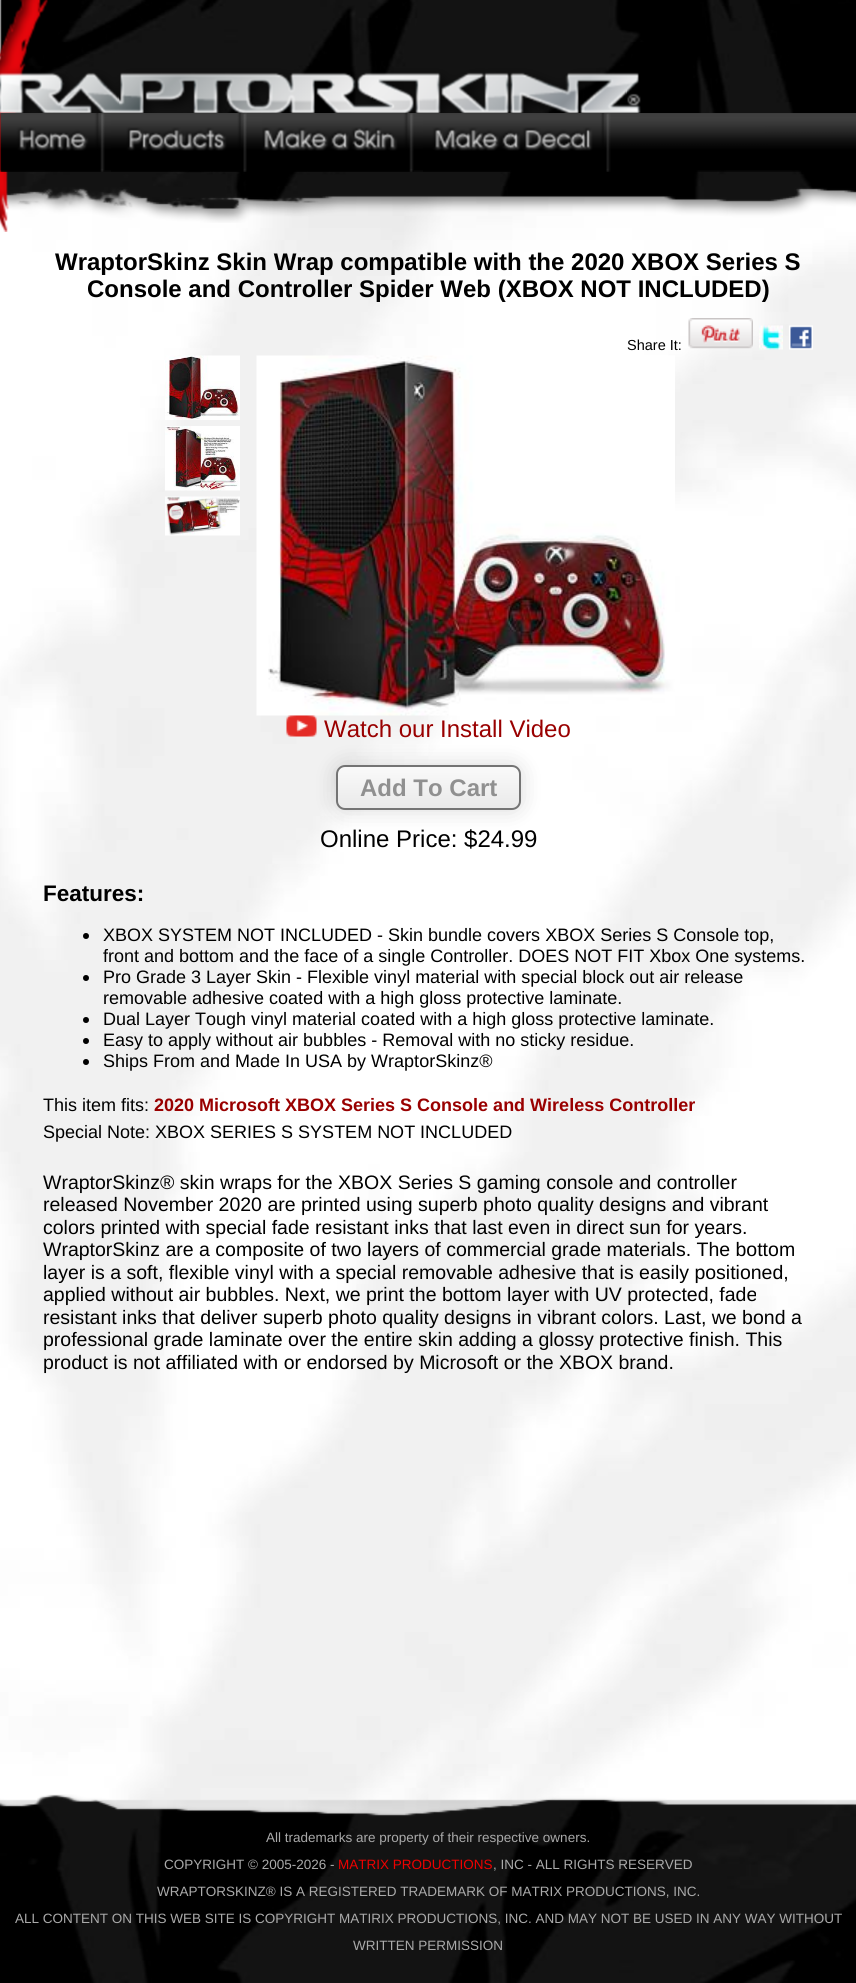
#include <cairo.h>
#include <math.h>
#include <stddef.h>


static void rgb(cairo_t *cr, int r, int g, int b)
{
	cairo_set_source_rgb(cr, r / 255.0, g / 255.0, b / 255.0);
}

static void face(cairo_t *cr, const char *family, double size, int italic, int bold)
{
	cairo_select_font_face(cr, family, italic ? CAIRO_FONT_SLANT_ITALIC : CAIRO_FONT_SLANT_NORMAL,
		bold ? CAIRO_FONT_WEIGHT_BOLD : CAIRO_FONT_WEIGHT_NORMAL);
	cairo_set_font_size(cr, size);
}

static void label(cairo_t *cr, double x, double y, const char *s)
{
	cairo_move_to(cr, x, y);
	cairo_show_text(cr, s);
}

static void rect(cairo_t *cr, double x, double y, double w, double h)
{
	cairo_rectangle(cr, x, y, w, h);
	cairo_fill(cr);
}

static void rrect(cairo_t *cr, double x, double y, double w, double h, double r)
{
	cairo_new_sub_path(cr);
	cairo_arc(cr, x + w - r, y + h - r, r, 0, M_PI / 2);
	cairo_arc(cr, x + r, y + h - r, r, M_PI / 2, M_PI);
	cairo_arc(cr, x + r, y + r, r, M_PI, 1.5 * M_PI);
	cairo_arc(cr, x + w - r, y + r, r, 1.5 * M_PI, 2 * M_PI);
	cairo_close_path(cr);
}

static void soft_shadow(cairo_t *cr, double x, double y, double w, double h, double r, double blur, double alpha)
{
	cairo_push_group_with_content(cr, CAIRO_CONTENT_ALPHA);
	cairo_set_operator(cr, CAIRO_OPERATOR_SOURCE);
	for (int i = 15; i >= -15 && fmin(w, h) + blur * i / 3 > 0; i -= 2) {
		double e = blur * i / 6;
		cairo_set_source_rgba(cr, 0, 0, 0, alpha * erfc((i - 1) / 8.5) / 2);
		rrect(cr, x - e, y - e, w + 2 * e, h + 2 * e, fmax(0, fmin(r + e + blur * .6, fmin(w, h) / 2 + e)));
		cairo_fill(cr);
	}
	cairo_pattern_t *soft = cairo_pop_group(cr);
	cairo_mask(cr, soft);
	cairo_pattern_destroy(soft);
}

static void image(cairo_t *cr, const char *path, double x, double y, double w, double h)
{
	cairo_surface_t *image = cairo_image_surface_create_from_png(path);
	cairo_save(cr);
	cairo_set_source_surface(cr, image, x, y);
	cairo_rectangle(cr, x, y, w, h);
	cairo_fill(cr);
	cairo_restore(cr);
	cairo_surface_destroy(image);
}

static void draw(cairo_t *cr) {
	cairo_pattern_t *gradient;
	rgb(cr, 255, 255, 255);
	cairo_paint(cr);
	image(cr, "image0.png", 0, 0, 856, 1817);
	image(cr, "image1.png", 0, 0, 856, 223);
	image(cr, "image2.png", 0, 0, 641, 232);
	image(cr, "image3.png", 0, 113, 856, 59);
	image(cr, "image4.png", 0, 113, 105, 59);
	image(cr, "image5.png", 111, 113, 136, 59);
	image(cr, "image6.png", 262, 113, 152, 59);
	image(cr, "image7.png", 423, 113, 188, 59);
	face(cr, "Liberation Sans", 24, 0, 1);
	rgb(cr, 0, 0, 0);
	label(cr, 55, 270, "WraptorSkinz Skin Wrap compatible with the 2020 XBOX Series S");
	label(cr, 87, 297, "Console and Controller Spider Web (XBOX NOT INCLUDED)");
	face(cr, "Liberation Sans", 14.5, 0, 0);
	label(cr, 627, 350, "Share It:");
	image(cr, "image8.png", 688, 318, 65, 31);
	image(cr, "image9.png", 759, 325, 24, 25);
	image(cr, "image10.png", 789, 325, 24, 25);
	image(cr, "image11.png", 165, 355, 75, 65);
	image(cr, "image12.png", 165, 426, 75, 65);
	image(cr, "image13.png", 165, 496, 75, 40);
	image(cr, "image14.png", 256, 355, 419, 361);
	image(cr, "image15.png", 286, 715, 31, 22);
	face(cr, "Liberation Sans", 24, 0, 0);
	rgb(cr, 153, 0, 0);
	label(cr, 324, 737, "Watch our Install Video");
	rgb(cr, 0, 0, 0);
	soft_shadow(cr, 336, 765, 185, 45, 9, 11, 0.15);
	cairo_save(cr);
	rrect(cr, 336, 765, 185, 45, 9);
	cairo_clip(cr);
	gradient = cairo_pattern_create_linear(428, 767, 428, 809);
	cairo_pattern_add_color_stop_rgba(gradient, 0.05, 0.976, 0.976, 0.976, 1);
	cairo_pattern_add_color_stop_rgba(gradient, 1, 0.914, 0.914, 0.914, 1);
	cairo_set_source(cr, gradient);
	cairo_pattern_destroy(gradient);
	rect(cr, 336, 767, 185, 42);
	cairo_restore(cr);
	rrect(cr, 337, 766, 183, 43, 8);
	rgb(cr, 116, 116, 116);
	cairo_stroke(cr);
	face(cr, "Liberation Sans", 24, 0, 1);
	rgb(cr, 144, 144, 144);
	label(cr, 360, 796, "Add To Cart");
	face(cr, "Liberation Sans", 24, 0, 0);
	rgb(cr, 0, 0, 0);
	label(cr, 320, 847, "Online Price: $24.99");
	face(cr, "Liberation Sans", 22.5, 0, 1);
	label(cr, 43, 901, "Features:");
	cairo_new_path(cr);
	cairo_arc(cr, 86, 936, 3, 0, 2 * M_PI);
	cairo_fill(cr);
	face(cr, "Liberation Sans", 18, 0, 0);
	label(cr, 103, 941, "XBOX SYSTEM NOT INCLUDED - Skin bundle covers XBOX Series S Console top,");
	label(cr, 103, 962, "front and bottom and the face of a single Controller. DOES NOT FIT Xbox One systems.");
	cairo_new_path(cr);
	cairo_arc(cr, 86, 978, 3, 0, 2 * M_PI);
	cairo_fill(cr);
	label(cr, 103, 983, "Pro Grade 3 Layer Skin - Flexible vinyl material with special block out air release");
	label(cr, 103, 1004, "removable adhesive coated with a high gloss protective laminate.");
	cairo_new_path(cr);
	cairo_arc(cr, 86, 1020, 3, 0, 2 * M_PI);
	cairo_fill(cr);
	label(cr, 103, 1025, "Dual Layer Tough vinyl material coated with a high gloss protective laminate.");
	cairo_new_path(cr);
	cairo_arc(cr, 86, 1041, 3, 0, 2 * M_PI);
	cairo_fill(cr);
	label(cr, 103, 1046, "Easy to apply without air bubbles - Removal with no sticky residue.");
	cairo_new_path(cr);
	cairo_arc(cr, 86, 1062, 3, 0, 2 * M_PI);
	cairo_fill(cr);
	label(cr, 103, 1067, "Ships From and Made In USA by WraptorSkinz®");
	label(cr, 43, 1111, "This item fits:");
	face(cr, "Liberation Sans", 18, 0, 1);
	rgb(cr, 153, 0, 0);
	label(cr, 154, 1111, "2020 Microsoft XBOX Series S Console and Wireless Controller");
	face(cr, "Liberation Sans", 18, 0, 0);
	rgb(cr, 0, 0, 0);
	label(cr, 43, 1138, "Special Note: XBOX SERIES S SYSTEM NOT INCLUDED");
	face(cr, "Liberation Sans", 19.5, 0, 0);
	label(cr, 43, 1189, "WraptorSkinz® skin wraps for the XBOX Series S gaming console and controller");
	label(cr, 43, 1211, "released November 2020 are printed using superb photo quality designs and vibrant");
	label(cr, 43, 1234, "colors printed with special fade resistant inks that last even in direct sun for years.");
	label(cr, 43, 1256, "WraptorSkinz are a composite of two layers of commercial grade materials. The bottom");
	label(cr, 43, 1279, "layer is a soft, flexible vinyl with a special removable adhesive that is easily positioned,");
	label(cr, 43, 1301, "applied without air bubbles. Next, we print the bottom layer with UV protected, fade");
	label(cr, 43, 1324, "resistant inks that deliver superb photo quality designs in vibrant colors. Last, we bond a");
	label(cr, 43, 1346, "professional grade laminate over the entire skin adding a glossy protective finish. This");
	label(cr, 43, 1369, "product is not affiliated with or endorsed by Microsoft or the XBOX brand.");
	image(cr, "image16.png", 0, 1794, 856, 189);
	face(cr, "Liberation Sans", 13.5, 0, 0);
	rgb(cr, 170, 170, 170);
	label(cr, 266, 1842, "All trademarks are property of their respective owners.");
	label(cr, 164, 1869, "COPYRIGHT © 2005-2026 -");
	rgb(cr, 238, 0, 0);
	label(cr, 338, 1869, "MATRIX PRODUCTIONS");
	rgb(cr, 170, 170, 170);
	label(cr, 493, 1869, ", INC - ALL RIGHTS RESERVED");
	label(cr, 157, 1896, "WRAPTORSKINZ® IS A REGISTERED TRADEMARK OF MATRIX PRODUCTIONS, INC.");
	label(cr, 15, 1923, "ALL CONTENT ON THIS WEB SITE IS COPYRIGHT MATIRIX PRODUCTIONS, INC. AND MAY NOT BE USED IN ANY WAY WITHOUT");
	label(cr, 353, 1950, "WRITTEN PERMISSION");
}

int main(void) {
	cairo_surface_t *surface = cairo_image_surface_create(CAIRO_FORMAT_RGB24, 856, 1983);
	cairo_t *cr = cairo_create(surface);
	cairo_font_options_t *options = cairo_font_options_create();
	cairo_font_options_set_hint_metrics(options, CAIRO_HINT_METRICS_OFF);
	cairo_font_options_set_hint_style(options, CAIRO_HINT_STYLE_NONE);
	cairo_set_font_options(cr, options);
	cairo_set_miter_limit(cr, 4);
	draw(cr);
	cairo_surface_write_to_png(surface, "render.png");
	cairo_font_options_destroy(options);
	cairo_destroy(cr);
	cairo_surface_destroy(surface);
	return 0;
}
